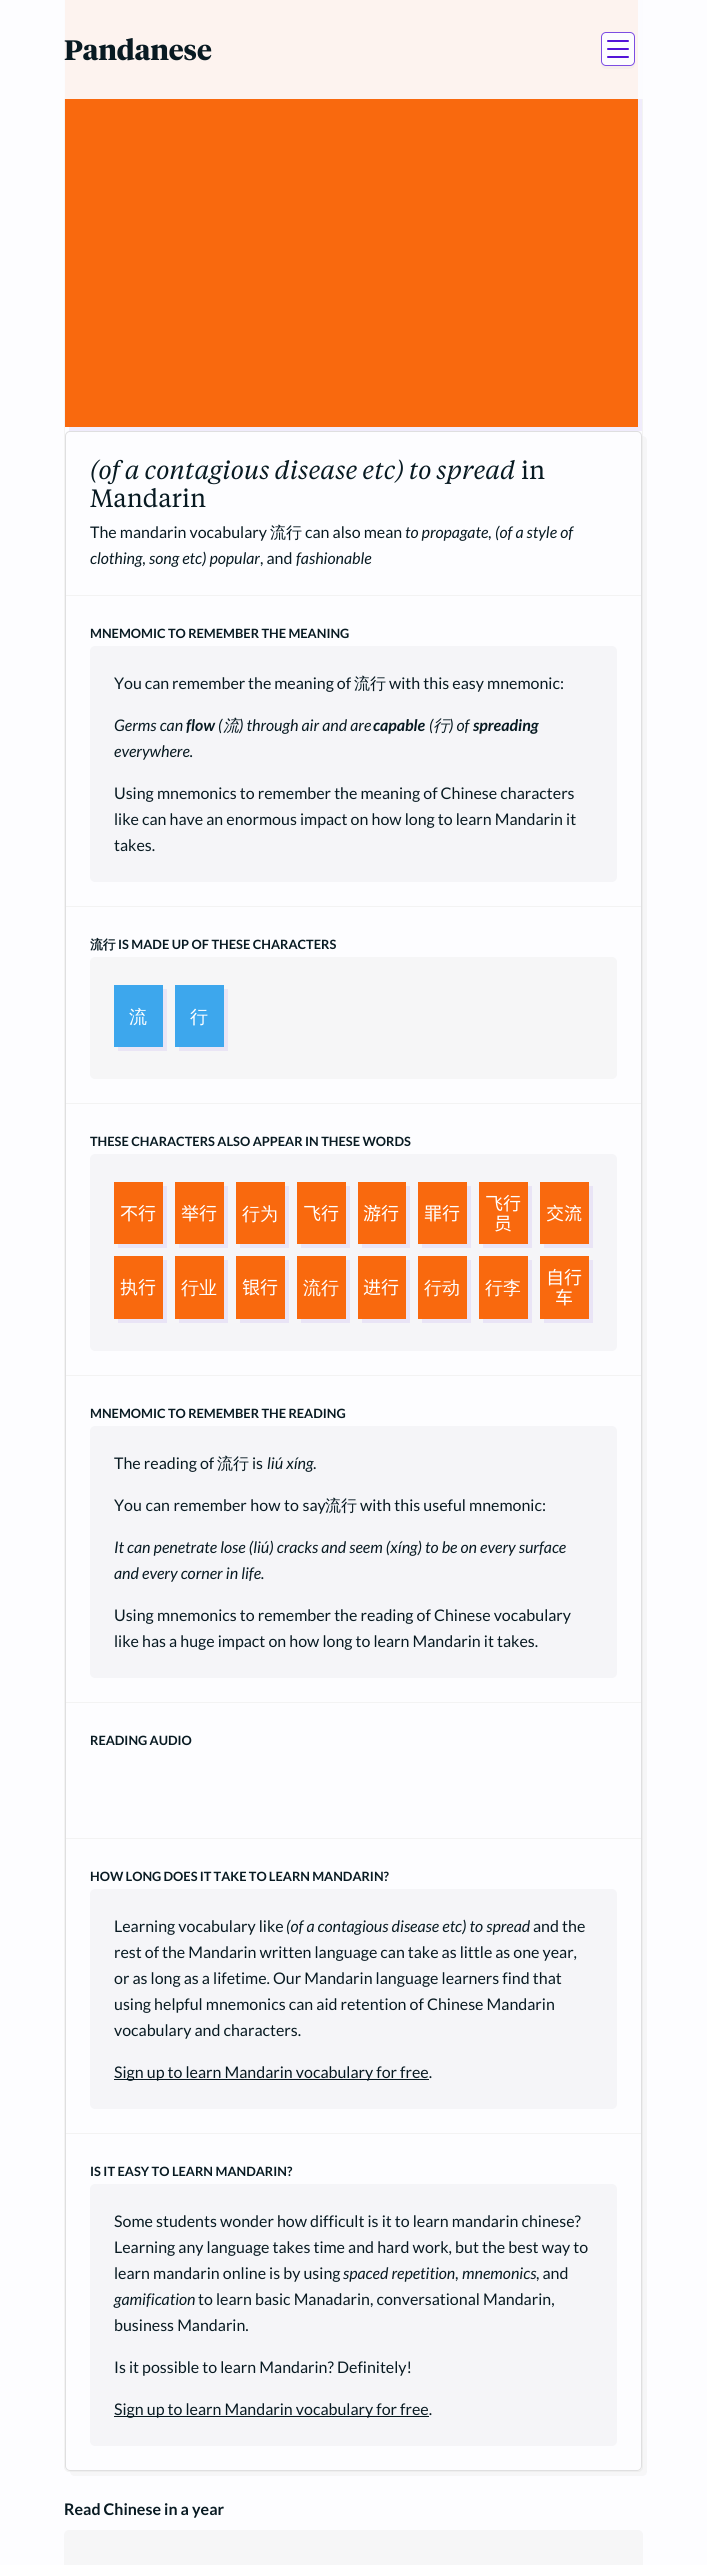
#include <cairo.h>
#include <math.h>
#include <stddef.h>


static void rgb(cairo_t *cr, int r, int g, int b)
{
	cairo_set_source_rgb(cr, r / 255.0, g / 255.0, b / 255.0);
}

static void face(cairo_t *cr, const char *family, double size, int italic, int bold)
{
	cairo_select_font_face(cr, family, italic ? CAIRO_FONT_SLANT_ITALIC : CAIRO_FONT_SLANT_NORMAL,
		bold ? CAIRO_FONT_WEIGHT_BOLD : CAIRO_FONT_WEIGHT_NORMAL);
	cairo_set_font_size(cr, size);
}

static void label(cairo_t *cr, double x, double y, const char *s)
{
	cairo_move_to(cr, x, y);
	cairo_show_text(cr, s);
}

static void tracked(cairo_t *cr, double x, double y, const char *s, double letter, double word)
{
	cairo_move_to(cr, x, y);
	while (*s) {
		char ch[5] = {0};
		int n = 0;
		do ch[n++] = *s++; while ((*s & 0xC0) == 0x80);
		cairo_show_text(cr, ch);
		cairo_rel_move_to(cr, letter + word * (*ch == ' '), 0);
	}
}

static void rect(cairo_t *cr, double x, double y, double w, double h)
{
	cairo_rectangle(cr, x, y, w, h);
	cairo_fill(cr);
}

static void rrect(cairo_t *cr, double x, double y, double w, double h, double r)
{
	cairo_new_sub_path(cr);
	cairo_arc(cr, x + w - r, y + h - r, r, 0, M_PI / 2);
	cairo_arc(cr, x + r, y + h - r, r, M_PI / 2, M_PI);
	cairo_arc(cr, x + r, y + r, r, M_PI, 1.5 * M_PI);
	cairo_arc(cr, x + w - r, y + r, r, 1.5 * M_PI, 2 * M_PI);
	cairo_close_path(cr);
}

static void image(cairo_t *cr, const char *path, double x, double y, double w, double h)
{
	cairo_surface_t *image = cairo_image_surface_create_from_png(path);
	cairo_save(cr);
	cairo_set_source_surface(cr, image, x, y);
	cairo_rectangle(cr, x, y, w, h);
	cairo_fill(cr);
	cairo_restore(cr);
	cairo_surface_destroy(image);
}

static void draw(cairo_t *cr) {
	rgb(cr, 253, 253, 255);
	cairo_paint(cr);
	rrect(cr, 64.5, -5.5, 578, 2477, 4.5);
	rgb(cr, 243, 243, 243);
	cairo_set_line_width(cr, 1);
	cairo_stroke(cr);
	rgb(cr, 240, 236, 252);
	cairo_new_path(cr);
	cairo_move_to(cr, 69, 427);
	cairo_line_to(cr, 69, 431);
	cairo_line_to(cr, 642, 431);
	cairo_line_to(cr, 642, -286);
	cairo_line_to(cr, 638, -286);
	cairo_line_to(cr, 638, 427);
	cairo_close_path(cr);
	cairo_fill(cr);
	rgb(cr, 249, 105, 14);
	rect(cr, 65, 0, 573, 427);
	cairo_set_source_rgba(cr, 0.992, 0.992, 1, 0.93);
	rect(cr, 64, 0, 579, 99);
	face(cr, "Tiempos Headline", 28, 0, 1);
	rgb(cr, 8, 26, 34);
	label(cr, 64, 60, "Pandanese");
	rgb(cr, 245, 238, 235);
	cairo_new_path(cr);
	cairo_move_to(cr, 601, 61);
	cairo_curve_to(cr, 601, 68.5, 602.5, 69, 610, 69);
	cairo_line_to(cr, 626, 69);
	cairo_curve_to(cr, 633.5, 69, 635, 68.5, 635, 61);
	cairo_curve_to(cr, 635, 63.5, 632.5, 66, 630, 66);
	cairo_line_to(cr, 606, 66);
	cairo_curve_to(cr, 603.5, 66, 601, 63.5, 601, 61);
	cairo_close_path(cr);
	cairo_fill(cr);
	rgb(cr, 253, 253, 255);
	rrect(cr, 601, 32, 34, 34, 5);
	cairo_fill(cr);
	rrect(cr, 601.5, 32.5, 33, 33, 4.5);
	cairo_set_source_rgba(cr, 0.325, 0.078, 0.847, 0.75);
	cairo_stroke(cr);
	image(cr, "image0.png", 607, 40, 22, 18);
	cairo_set_source_rgba(cr, 0.875, 0.875, 0.878, 0.25);
	cairo_new_path(cr);
	cairo_move_to(cr, 70, 2471);
	cairo_curve_to(cr, 70, 2474, 72, 2476, 75, 2476);
	cairo_line_to(cr, 642, 2476);
	cairo_curve_to(cr, 645, 2476, 647, 2474, 647, 2471);
	cairo_line_to(cr, 647, 441);
	cairo_curve_to(cr, 647, 438, 645, 436, 642, 436);
	cairo_line_to(cr, 642, 2466);
	cairo_curve_to(cr, 642, 2469, 640, 2471, 637, 2471);
	cairo_close_path(cr);
	cairo_fill(cr);
	rrect(cr, 65.5, 431.5, 576, 2039, 4.5);
	rgb(cr, 223, 223, 224);
	cairo_stroke(cr);
	rgb(cr, 243, 243, 243);
	rect(cr, 66, 595, 575, 1);
	face(cr, "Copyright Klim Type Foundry", 25, 1, 0);
	rgb(cr, 8, 26, 34);
	label(cr, 90, 479, "(of a contagious disease etc) to spread");
	face(cr, "Copyright Klim Type Foundry", 25, 0, 0);
	label(cr, 521, 479, "in");
	label(cr, 90, 507, "Mandarin");
	face(cr, "Lato", 16, 0, 0);
	label(cr, 90, 538, "The mandarin vocabulary");
	face(cr, "WenQuanYi Zen Hei Medium", 16, 0, 0);
	label(cr, 270, 538, "流行");
	face(cr, "Lato", 16, 0, 0);
	label(cr, 305, 538, "can also mean");
	face(cr, "Lato", 16, 1, 0);
	label(cr, 405, 538, "to propagate");
	face(cr, "Lato", 16, 0, 0);
	label(cr, 488, 538, ",");
	face(cr, "Lato", 16, 1, 0);
	label(cr, 495, 538, "(of a style of");
	label(cr, 90, 564, "clothing, song etc) popular");
	face(cr, "Lato", 16, 0, 0);
	label(cr, 260, 564, ", and");
	face(cr, "Lato", 16, 1, 0);
	label(cr, 296, 564, "fashionable");
	rgb(cr, 243, 243, 243);
	rect(cr, 66, 906, 575, 1);
	face(cr, "Lato", 12.8, 0, 1);
	rgb(cr, 8, 26, 34);
	tracked(cr, 90, 638, "MNEMOMIC TO REMEMBER THE MEANING", 0, -0.1);
	rgb(cr, 245, 245, 248);
	rrect(cr, 90, 646, 527, 236, 5);
	cairo_fill(cr);
	face(cr, "Lato", 16, 0, 0);
	rgb(cr, 8, 26, 34);
	tracked(cr, 114, 689, "You can remember the meaning of", 0, -0.25);
	face(cr, "WenQuanYi Zen Hei Medium", 16, 0, 0);
	label(cr, 354, 689, "流行");
	face(cr, "Lato", 16, 0, 0);
	label(cr, 389, 689, "with this easy mnemonic:");
	face(cr, "Lato", 16, 1, 0);
	label(cr, 114, 731, "Germs can");
	face(cr, "Lato", 16, 1, 1);
	label(cr, 186, 731, "flow");
	face(cr, "Lato", 16, 1, 0);
	label(cr, 218, 731, "(");
	face(cr, "WenQuanYi Zen Hei Medium", 16, 1, 0);
	label(cr, 223, 731, "流");
	face(cr, "Lato", 16, 1, 0);
	label(cr, 239, 731, ") through air and are");
	face(cr, "Lato", 16, 1, 1);
	label(cr, 373, 731, "capable");
	face(cr, "Lato", 16, 1, 0);
	label(cr, 429, 731, "(");
	face(cr, "WenQuanYi Zen Hei Medium", 16, 1, 0);
	label(cr, 433, 731, "行");
	face(cr, "Lato", 16, 1, 0);
	label(cr, 449, 731, ") of");
	face(cr, "Lato", 16, 1, 1);
	label(cr, 473, 731, "spreading");
	face(cr, "Lato", 16, 1, 0);
	label(cr, 114, 757, "everywhere.");
	face(cr, "Lato", 16, 0, 0);
	label(cr, 114, 799, "Using mnemonics to remember the meaning of Chinese characters");
	label(cr, 114, 825, "like");
	label(cr, 142, 825, "can have an enormous impact on how long to learn Mandarin it");
	label(cr, 114, 851, "takes.");
	rgb(cr, 243, 243, 243);
	rect(cr, 66, 1103, 575, 1);
	face(cr, "WenQuanYi Zen Hei", 12.8, 0, 1);
	rgb(cr, 8, 26, 34);
	label(cr, 90, 949, "流行");
	face(cr, "Lato", 12.8, 0, 1);
	label(cr, 118, 949, "IS MADE UP OF THESE CHARACTERS");
	rgb(cr, 246, 246, 247);
	rrect(cr, 90, 957, 527, 122, 5);
	cairo_fill(cr);
	rgb(cr, 234, 229, 245);
	cairo_new_path(cr);
	cairo_move_to(cr, 118, 1047);
	cairo_line_to(cr, 118, 1051);
	cairo_line_to(cr, 167, 1051);
	cairo_line_to(cr, 167, 989);
	cairo_line_to(cr, 163, 989);
	cairo_line_to(cr, 163, 1047);
	cairo_close_path(cr);
	cairo_fill(cr);
	rgb(cr, 61, 167, 237);
	rect(cr, 114, 985, 49, 62);
	face(cr, "WenQuanYi Zen Hei Medium", 18, 0, 0);
	rgb(cr, 255, 255, 255);
	label(cr, 129, 1023, "流");
	rgb(cr, 234, 229, 245);
	cairo_new_path(cr);
	cairo_move_to(cr, 179, 1047);
	cairo_line_to(cr, 179, 1051);
	cairo_line_to(cr, 228, 1051);
	cairo_line_to(cr, 228, 989);
	cairo_line_to(cr, 224, 989);
	cairo_line_to(cr, 224, 1047);
	cairo_close_path(cr);
	cairo_fill(cr);
	rgb(cr, 61, 167, 237);
	rect(cr, 175, 985, 49, 62);
	rgb(cr, 255, 255, 255);
	label(cr, 190, 1023, "行");
	rgb(cr, 243, 243, 243);
	rect(cr, 66, 1375, 575, 1);
	face(cr, "Lato", 12.8, 0, 1);
	rgb(cr, 8, 26, 34);
	label(cr, 90, 1146, "THESE CHARACTERS ALSO APPEAR IN THESE WORDS");
	rgb(cr, 245, 245, 248);
	rrect(cr, 90, 1154, 527, 197, 5);
	cairo_fill(cr);
	rgb(cr, 233, 228, 246);
	cairo_new_path(cr);
	cairo_move_to(cr, 118, 1244);
	cairo_line_to(cr, 118, 1248);
	cairo_line_to(cr, 167, 1248);
	cairo_line_to(cr, 167, 1186);
	cairo_line_to(cr, 163, 1186);
	cairo_line_to(cr, 163, 1244);
	cairo_close_path(cr);
	cairo_fill(cr);
	rgb(cr, 249, 105, 14);
	rect(cr, 114, 1182, 49, 62);
	face(cr, "Noto Sans CJK SC", 18, 0, 0);
	rgb(cr, 255, 255, 255);
	label(cr, 120, 1220, "不行");
	rgb(cr, 233, 228, 246);
	cairo_new_path(cr);
	cairo_move_to(cr, 179, 1244);
	cairo_line_to(cr, 179, 1248);
	cairo_line_to(cr, 228, 1248);
	cairo_line_to(cr, 228, 1186);
	cairo_line_to(cr, 224, 1186);
	cairo_line_to(cr, 224, 1244);
	cairo_close_path(cr);
	cairo_fill(cr);
	rgb(cr, 249, 105, 14);
	rect(cr, 175, 1182, 49, 62);
	rgb(cr, 255, 255, 255);
	label(cr, 181, 1220, "举行");
	rgb(cr, 233, 228, 246);
	cairo_new_path(cr);
	cairo_move_to(cr, 240, 1244);
	cairo_line_to(cr, 240, 1248);
	cairo_line_to(cr, 289, 1248);
	cairo_line_to(cr, 289, 1186);
	cairo_line_to(cr, 285, 1186);
	cairo_line_to(cr, 285, 1244);
	cairo_close_path(cr);
	cairo_fill(cr);
	rgb(cr, 249, 105, 14);
	rect(cr, 236, 1182, 49, 62);
	face(cr, "WenQuanYi Zen Hei Medium", 18, 0, 0);
	rgb(cr, 255, 255, 255);
	label(cr, 242, 1220, "行为");
	rgb(cr, 233, 228, 246);
	cairo_new_path(cr);
	cairo_move_to(cr, 301, 1244);
	cairo_line_to(cr, 301, 1248);
	cairo_line_to(cr, 350, 1248);
	cairo_line_to(cr, 350, 1186);
	cairo_line_to(cr, 346, 1186);
	cairo_line_to(cr, 346, 1244);
	cairo_close_path(cr);
	cairo_fill(cr);
	rgb(cr, 249, 105, 14);
	rect(cr, 297, 1182, 49, 62);
	face(cr, "Noto Sans CJK SC", 18, 0, 0);
	rgb(cr, 255, 255, 255);
	label(cr, 303, 1220, "飞行");
	rgb(cr, 233, 228, 246);
	cairo_new_path(cr);
	cairo_move_to(cr, 362, 1244);
	cairo_line_to(cr, 362, 1248);
	cairo_line_to(cr, 410, 1248);
	cairo_line_to(cr, 410, 1186);
	cairo_line_to(cr, 406, 1186);
	cairo_line_to(cr, 406, 1244);
	cairo_close_path(cr);
	cairo_fill(cr);
	rgb(cr, 249, 105, 14);
	rect(cr, 358, 1182, 48, 62);
	rgb(cr, 255, 255, 255);
	label(cr, 363, 1220, "游行");
	rgb(cr, 233, 228, 246);
	cairo_new_path(cr);
	cairo_move_to(cr, 422, 1244);
	cairo_line_to(cr, 422, 1248);
	cairo_line_to(cr, 471, 1248);
	cairo_line_to(cr, 471, 1186);
	cairo_line_to(cr, 467, 1186);
	cairo_line_to(cr, 467, 1244);
	cairo_close_path(cr);
	cairo_fill(cr);
	rgb(cr, 249, 105, 14);
	rect(cr, 418, 1182, 49, 62);
	rgb(cr, 255, 255, 255);
	label(cr, 424, 1220, "罪行");
	rgb(cr, 233, 228, 246);
	cairo_new_path(cr);
	cairo_move_to(cr, 483, 1244);
	cairo_line_to(cr, 483, 1248);
	cairo_line_to(cr, 532, 1248);
	cairo_line_to(cr, 532, 1186);
	cairo_line_to(cr, 528, 1186);
	cairo_line_to(cr, 528, 1244);
	cairo_close_path(cr);
	cairo_fill(cr);
	rgb(cr, 249, 105, 14);
	rect(cr, 479, 1182, 49, 62);
	rgb(cr, 255, 255, 255);
	label(cr, 485, 1210, "飞行");
	label(cr, 494, 1230, "员");
	rgb(cr, 233, 228, 246);
	cairo_new_path(cr);
	cairo_move_to(cr, 544, 1244);
	cairo_line_to(cr, 544, 1248);
	cairo_line_to(cr, 593, 1248);
	cairo_line_to(cr, 593, 1186);
	cairo_line_to(cr, 589, 1186);
	cairo_line_to(cr, 589, 1244);
	cairo_close_path(cr);
	cairo_fill(cr);
	rgb(cr, 249, 105, 14);
	rect(cr, 540, 1182, 49, 62);
	rgb(cr, 255, 255, 255);
	label(cr, 546, 1220, "交流");
	rgb(cr, 233, 228, 246);
	cairo_new_path(cr);
	cairo_move_to(cr, 118, 1319);
	cairo_line_to(cr, 118, 1323);
	cairo_line_to(cr, 167, 1323);
	cairo_line_to(cr, 167, 1260);
	cairo_line_to(cr, 163, 1260);
	cairo_line_to(cr, 163, 1319);
	cairo_close_path(cr);
	cairo_fill(cr);
	rgb(cr, 249, 105, 14);
	rect(cr, 114, 1256, 49, 63);
	rgb(cr, 255, 255, 255);
	label(cr, 120, 1294, "执行");
	rgb(cr, 233, 228, 246);
	cairo_new_path(cr);
	cairo_move_to(cr, 179, 1319);
	cairo_line_to(cr, 179, 1323);
	cairo_line_to(cr, 228, 1323);
	cairo_line_to(cr, 228, 1260);
	cairo_line_to(cr, 224, 1260);
	cairo_line_to(cr, 224, 1319);
	cairo_close_path(cr);
	cairo_fill(cr);
	rgb(cr, 249, 105, 14);
	rect(cr, 175, 1256, 49, 63);
	face(cr, "WenQuanYi Zen Hei Medium", 18, 0, 0);
	rgb(cr, 255, 255, 255);
	label(cr, 181, 1294, "行业");
	rgb(cr, 233, 228, 246);
	cairo_new_path(cr);
	cairo_move_to(cr, 240, 1319);
	cairo_line_to(cr, 240, 1323);
	cairo_line_to(cr, 289, 1323);
	cairo_line_to(cr, 289, 1260);
	cairo_line_to(cr, 285, 1260);
	cairo_line_to(cr, 285, 1319);
	cairo_close_path(cr);
	cairo_fill(cr);
	rgb(cr, 249, 105, 14);
	rect(cr, 236, 1256, 49, 63);
	face(cr, "Noto Sans CJK SC", 18, 0, 0);
	rgb(cr, 255, 255, 255);
	label(cr, 242, 1294, "银行");
	rgb(cr, 233, 228, 246);
	cairo_new_path(cr);
	cairo_move_to(cr, 301, 1319);
	cairo_line_to(cr, 301, 1323);
	cairo_line_to(cr, 350, 1323);
	cairo_line_to(cr, 350, 1260);
	cairo_line_to(cr, 346, 1260);
	cairo_line_to(cr, 346, 1319);
	cairo_close_path(cr);
	cairo_fill(cr);
	rgb(cr, 249, 105, 14);
	rect(cr, 297, 1256, 49, 63);
	face(cr, "WenQuanYi Zen Hei Medium", 18, 0, 0);
	rgb(cr, 255, 255, 255);
	label(cr, 303, 1294, "流行");
	rgb(cr, 233, 228, 246);
	cairo_new_path(cr);
	cairo_move_to(cr, 362, 1319);
	cairo_line_to(cr, 362, 1323);
	cairo_line_to(cr, 410, 1323);
	cairo_line_to(cr, 410, 1260);
	cairo_line_to(cr, 406, 1260);
	cairo_line_to(cr, 406, 1319);
	cairo_close_path(cr);
	cairo_fill(cr);
	rgb(cr, 249, 105, 14);
	rect(cr, 358, 1256, 48, 63);
	face(cr, "Noto Sans CJK SC", 18, 0, 0);
	rgb(cr, 255, 255, 255);
	label(cr, 363, 1294, "进行");
	rgb(cr, 233, 228, 246);
	cairo_new_path(cr);
	cairo_move_to(cr, 422, 1319);
	cairo_line_to(cr, 422, 1323);
	cairo_line_to(cr, 471, 1323);
	cairo_line_to(cr, 471, 1260);
	cairo_line_to(cr, 467, 1260);
	cairo_line_to(cr, 467, 1319);
	cairo_close_path(cr);
	cairo_fill(cr);
	rgb(cr, 249, 105, 14);
	rect(cr, 418, 1256, 49, 63);
	face(cr, "WenQuanYi Zen Hei Medium", 18, 0, 0);
	rgb(cr, 255, 255, 255);
	label(cr, 424, 1294, "行动");
	rgb(cr, 233, 228, 246);
	cairo_new_path(cr);
	cairo_move_to(cr, 483, 1319);
	cairo_line_to(cr, 483, 1323);
	cairo_line_to(cr, 532, 1323);
	cairo_line_to(cr, 532, 1260);
	cairo_line_to(cr, 528, 1260);
	cairo_line_to(cr, 528, 1319);
	cairo_close_path(cr);
	cairo_fill(cr);
	rgb(cr, 249, 105, 14);
	rect(cr, 479, 1256, 49, 63);
	rgb(cr, 255, 255, 255);
	label(cr, 485, 1294, "行李");
	rgb(cr, 233, 228, 246);
	cairo_new_path(cr);
	cairo_move_to(cr, 544, 1319);
	cairo_line_to(cr, 544, 1323);
	cairo_line_to(cr, 593, 1323);
	cairo_line_to(cr, 593, 1260);
	cairo_line_to(cr, 589, 1260);
	cairo_line_to(cr, 589, 1319);
	cairo_close_path(cr);
	cairo_fill(cr);
	rgb(cr, 249, 105, 14);
	rect(cr, 540, 1256, 49, 63);
	face(cr, "Noto Sans CJK SC", 18, 0, 0);
	rgb(cr, 255, 255, 255);
	label(cr, 546, 1284, "自行");
	label(cr, 555, 1304, "车");
	rgb(cr, 243, 243, 243);
	rect(cr, 66, 1702, 575, 1);
	face(cr, "Lato", 12.8, 0, 1);
	rgb(cr, 8, 26, 34);
	tracked(cr, 90, 1418, "MNEMOMIC TO REMEMBER THE READING", 0, -0.1);
	rgb(cr, 245, 245, 248);
	rrect(cr, 90, 1426, 527, 252, 5);
	cairo_fill(cr);
	face(cr, "Lato", 16, 0, 0);
	rgb(cr, 8, 26, 34);
	label(cr, 114, 1469, "The reading of");
	face(cr, "WenQuanYi Zen Hei Medium", 16, 0, 0);
	label(cr, 217, 1469, "流行");
	face(cr, "Lato", 16, 0, 0);
	label(cr, 252, 1469, "is");
	face(cr, "Lato", 16, 1, 0);
	label(cr, 267, 1469, "liú xíng");
	face(cr, "Lato", 16, 0, 0);
	label(cr, 313, 1469, ".");
	tracked(cr, 114, 1511, "You can remember how to say", 0, 0.5);
	face(cr, "WenQuanYi Zen Hei Medium", 16, 0, 0);
	label(cr, 325, 1511, "流行");
	face(cr, "Lato", 16, 0, 0);
	label(cr, 360, 1511, "with this useful mnemonic:");
	face(cr, "Lato", 16, 1, 0);
	label(cr, 114, 1553, "It can penetrate lose (liú) cracks and seem (xíng) to be on every surface");
	label(cr, 114, 1579, "and every corner in life.");
	face(cr, "Lato", 16, 0, 0);
	label(cr, 114, 1621, "Using mnemonics to remember the reading of Chinese vocabulary");
	label(cr, 114, 1647, "like");
	label(cr, 142, 1647, "has a huge impact on how long to learn Mandarin it takes.");
	rgb(cr, 243, 243, 243);
	rect(cr, 66, 1838, 575, 1);
	face(cr, "Lato", 12.8, 0, 1);
	rgb(cr, 8, 26, 34);
	tracked(cr, 90, 1745, "READING AUDIO", 0, -0.25);
	rgb(cr, 243, 243, 243);
	rect(cr, 66, 2133, 575, 1);
	rgb(cr, 8, 26, 34);
	tracked(cr, 90, 1881, "HOW LONG DOES IT TAKE TO LEARN MANDARIN?", 0, -0.25);
	rgb(cr, 245, 245, 248);
	rrect(cr, 90, 1889, 527, 220, 5);
	cairo_fill(cr);
	face(cr, "Lato", 16, 0, 0);
	rgb(cr, 8, 26, 34);
	label(cr, 114, 1932, "Learning vocabulary like");
	face(cr, "Lato", 16, 1, 0);
	label(cr, 286, 1932, "(of a contagious disease etc) to spread");
	face(cr, "Lato", 16, 0, 0);
	label(cr, 533, 1932, "and the");
	tracked(cr, 114, 1958, "rest of the Mandarin written language can take as little as one year,", 0, -0.1);
	label(cr, 114, 1984, "or as long as a lifetime. Our Mandarin language learners find that");
	label(cr, 114, 2010, "using helpful mnemonics can aid retention of Chinese Mandarin");
	label(cr, 114, 2036, "vocabulary and characters.");
	rect(cr, 114, 2079, 315, 1);
	label(cr, 114, 2078, "Sign up to learn Mandarin vocabulary for free.");
	face(cr, "Lato", 12.8, 0, 1);
	label(cr, 90, 2176, "IS IT EASY TO LEARN MANDARIN?");
	rgb(cr, 245, 245, 248);
	rrect(cr, 90, 2184, 527, 262, 5);
	cairo_fill(cr);
	face(cr, "Lato", 16, 0, 0);
	rgb(cr, 8, 26, 34);
	label(cr, 114, 2227, "Some students wonder how difficult is it to learn mandarin chinese?");
	label(cr, 114, 2253, "Learning any language takes time and hard work, but the best way to");
	label(cr, 114, 2279, "learn mandarin online is by using");
	face(cr, "Lato", 16, 1, 0);
	label(cr, 343, 2279, "spaced repetition");
	face(cr, "Lato", 16, 0, 0);
	label(cr, 455, 2279, ",");
	face(cr, "Lato", 16, 1, 0);
	label(cr, 462, 2279, "mnemonics");
	face(cr, "Lato", 16, 0, 0);
	label(cr, 536, 2279, ", and");
	face(cr, "Lato", 16, 1, 0);
	label(cr, 114, 2305, "gamification");
	face(cr, "Lato", 16, 0, 0);
	label(cr, 198, 2305, "to learn basic Manadarin, conversational Mandarin,");
	label(cr, 114, 2331, "business Mandarin.");
	label(cr, 114, 2373, "Is it possible to learn Mandarin? Definitely!");
	rect(cr, 114, 2416, 315, 1);
	label(cr, 114, 2415, "Sign up to learn Mandarin vocabulary for free.");
	face(cr, "Lato", 16, 0, 1);
	label(cr, 64, 2515, "Read Chinese in a year");
	rgb(cr, 246, 246, 247);
	rrect(cr, 64, 2530, 579, 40, 5);
	cairo_fill(cr);
}

int main(void) {
	cairo_surface_t *surface = cairo_image_surface_create(CAIRO_FORMAT_RGB24, 707, 2565);
	cairo_t *cr = cairo_create(surface);
	cairo_font_options_t *options = cairo_font_options_create();
	cairo_font_options_set_hint_metrics(options, CAIRO_HINT_METRICS_OFF);
	cairo_font_options_set_hint_style(options, CAIRO_HINT_STYLE_NONE);
	cairo_set_font_options(cr, options);
	cairo_set_miter_limit(cr, 4);
	draw(cr);
	cairo_surface_write_to_png(surface, "render.png");
	cairo_font_options_destroy(options);
	cairo_destroy(cr);
	cairo_surface_destroy(surface);
	return 0;
}
